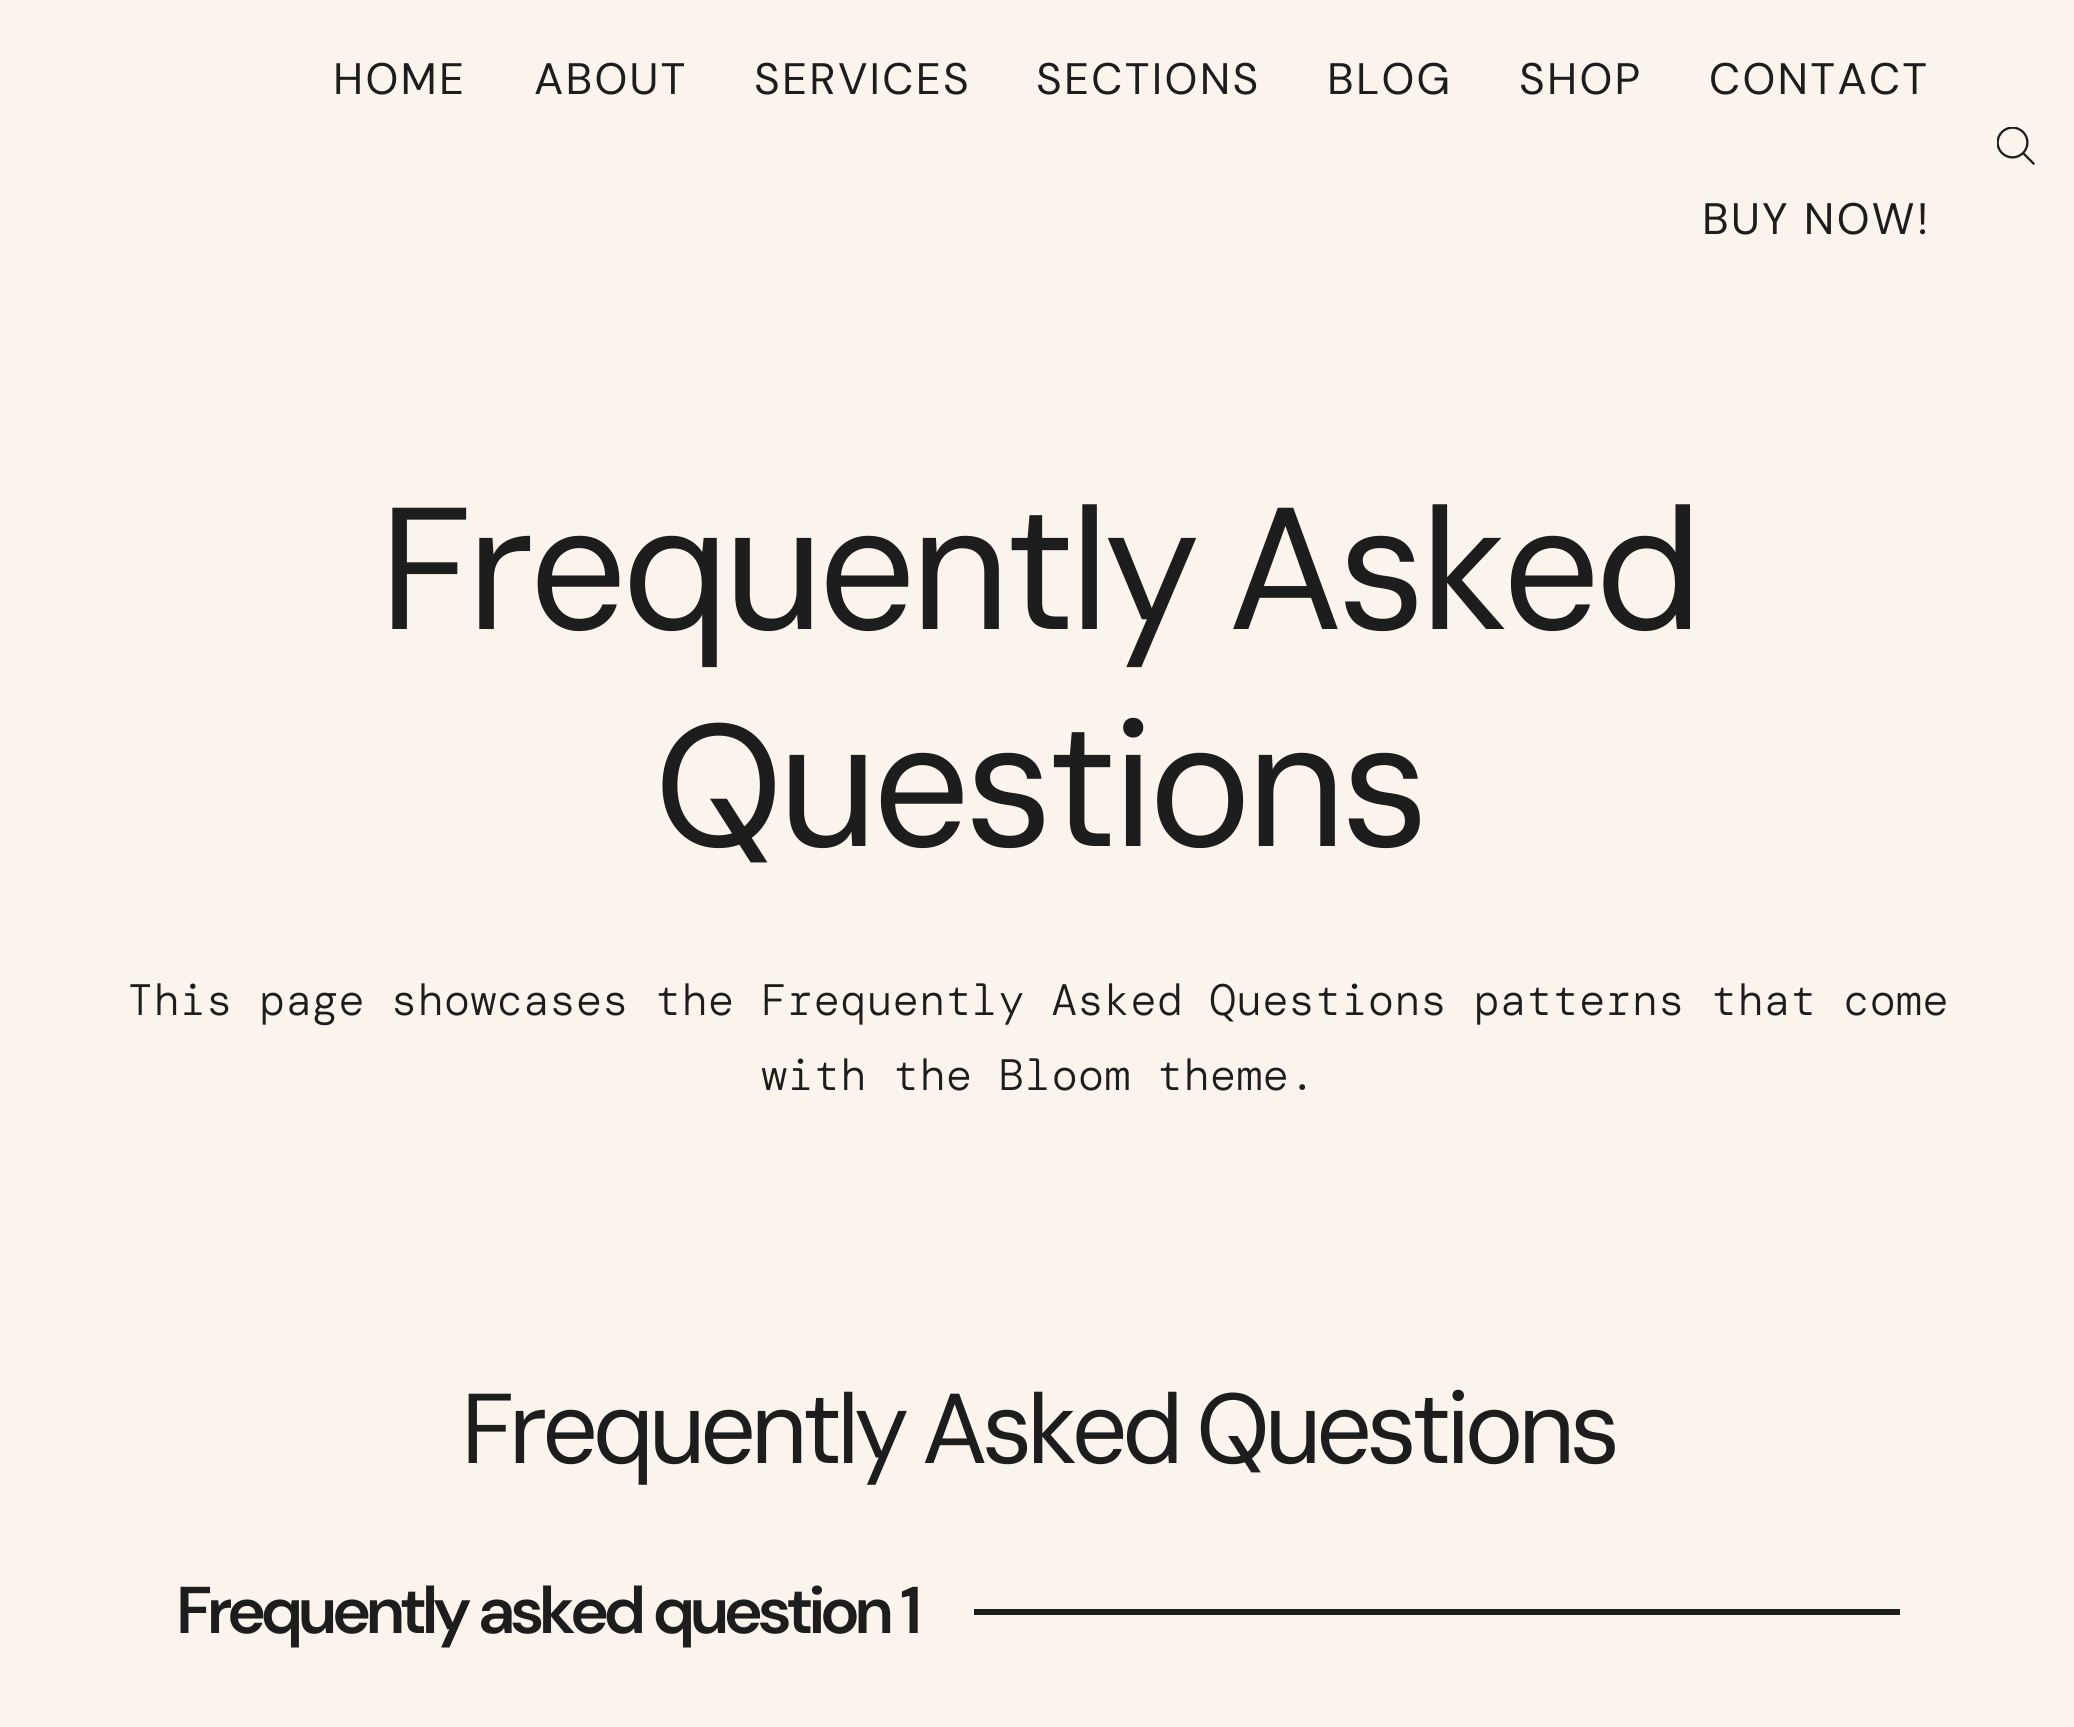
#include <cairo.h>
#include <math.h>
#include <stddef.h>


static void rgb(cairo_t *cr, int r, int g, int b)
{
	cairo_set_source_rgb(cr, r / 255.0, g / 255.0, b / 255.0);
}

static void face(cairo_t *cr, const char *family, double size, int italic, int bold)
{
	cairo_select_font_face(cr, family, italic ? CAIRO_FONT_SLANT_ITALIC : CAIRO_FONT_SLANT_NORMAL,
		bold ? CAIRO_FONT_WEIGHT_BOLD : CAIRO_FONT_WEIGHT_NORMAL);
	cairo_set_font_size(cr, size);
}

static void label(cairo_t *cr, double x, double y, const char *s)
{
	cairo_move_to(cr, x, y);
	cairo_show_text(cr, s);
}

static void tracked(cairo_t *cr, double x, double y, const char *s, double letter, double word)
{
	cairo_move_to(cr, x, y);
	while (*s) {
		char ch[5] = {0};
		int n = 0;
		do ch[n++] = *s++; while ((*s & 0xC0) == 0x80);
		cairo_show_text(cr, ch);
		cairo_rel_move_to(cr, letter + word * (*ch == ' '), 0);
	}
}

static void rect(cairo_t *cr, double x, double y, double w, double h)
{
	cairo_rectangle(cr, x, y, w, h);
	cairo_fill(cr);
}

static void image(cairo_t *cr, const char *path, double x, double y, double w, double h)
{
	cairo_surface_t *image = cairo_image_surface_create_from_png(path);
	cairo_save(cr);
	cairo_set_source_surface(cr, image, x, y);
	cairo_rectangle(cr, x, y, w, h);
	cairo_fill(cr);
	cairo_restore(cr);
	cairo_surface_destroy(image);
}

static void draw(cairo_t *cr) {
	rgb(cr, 251, 244, 237);
	cairo_paint(cr);
	face(cr, "DM Sans", 44, 0, 0);
	rgb(cr, 30, 29, 29);
	tracked(cr, 333, 94, "HOME", 2.25, 0);
	tracked(cr, 534, 94, "ABOUT", 2.25, 0);
	tracked(cr, 754, 94, "SERVICES", 2.25, 0);
	tracked(cr, 1036, 94, "SECTIONS", 2.25, 0);
	tracked(cr, 1327, 94, "BLOG", 2.25, 0);
	tracked(cr, 1519, 94, "SHOP", 2.25, 0);
	tracked(cr, 1709, 94, "CONTACT", 2.25, 0);
	tracked(cr, 1702, 234, "BUY NOW!", 2.25, 0);
	image(cr, "image0.png", 1997, 127, 38, 38);
	face(cr, "DM Sans", 173.25, 0, 0);
	tracked(cr, 379, 629, "Frequently Asked", -5.5, -8);
	tracked(cr, 654, 846, "Questions", -5.5, 0);
	face(cr, "DM Mono Light", 44, 0, 0);
	label(cr, 127, 1015, "This page showcases the Frequently Asked Questions patterns that come");
	label(cr, 761, 1090, "with the Bloom theme.");
	face(cr, "DM Sans", 99, 0, 0);
	tracked(cr, 461, 1463, "Frequently Asked Questions", -5.5, -3);
	face(cr, "DM Sans SemiBold", 66, 0, 0);
	tracked(cr, 176, 1633, "Frequently asked question 1", -5.5, 1);
	rect(cr, 974, 1609, 926, 6);
}

int main(void) {
	cairo_surface_t *surface = cairo_image_surface_create(CAIRO_FORMAT_RGB24, 2074, 1727);
	cairo_t *cr = cairo_create(surface);
	cairo_font_options_t *options = cairo_font_options_create();
	cairo_font_options_set_hint_metrics(options, CAIRO_HINT_METRICS_OFF);
	cairo_font_options_set_hint_style(options, CAIRO_HINT_STYLE_NONE);
	cairo_set_font_options(cr, options);
	cairo_set_miter_limit(cr, 4);
	draw(cr);
	cairo_surface_write_to_png(surface, "render.png");
	cairo_font_options_destroy(options);
	cairo_destroy(cr);
	cairo_surface_destroy(surface);
	return 0;
}
